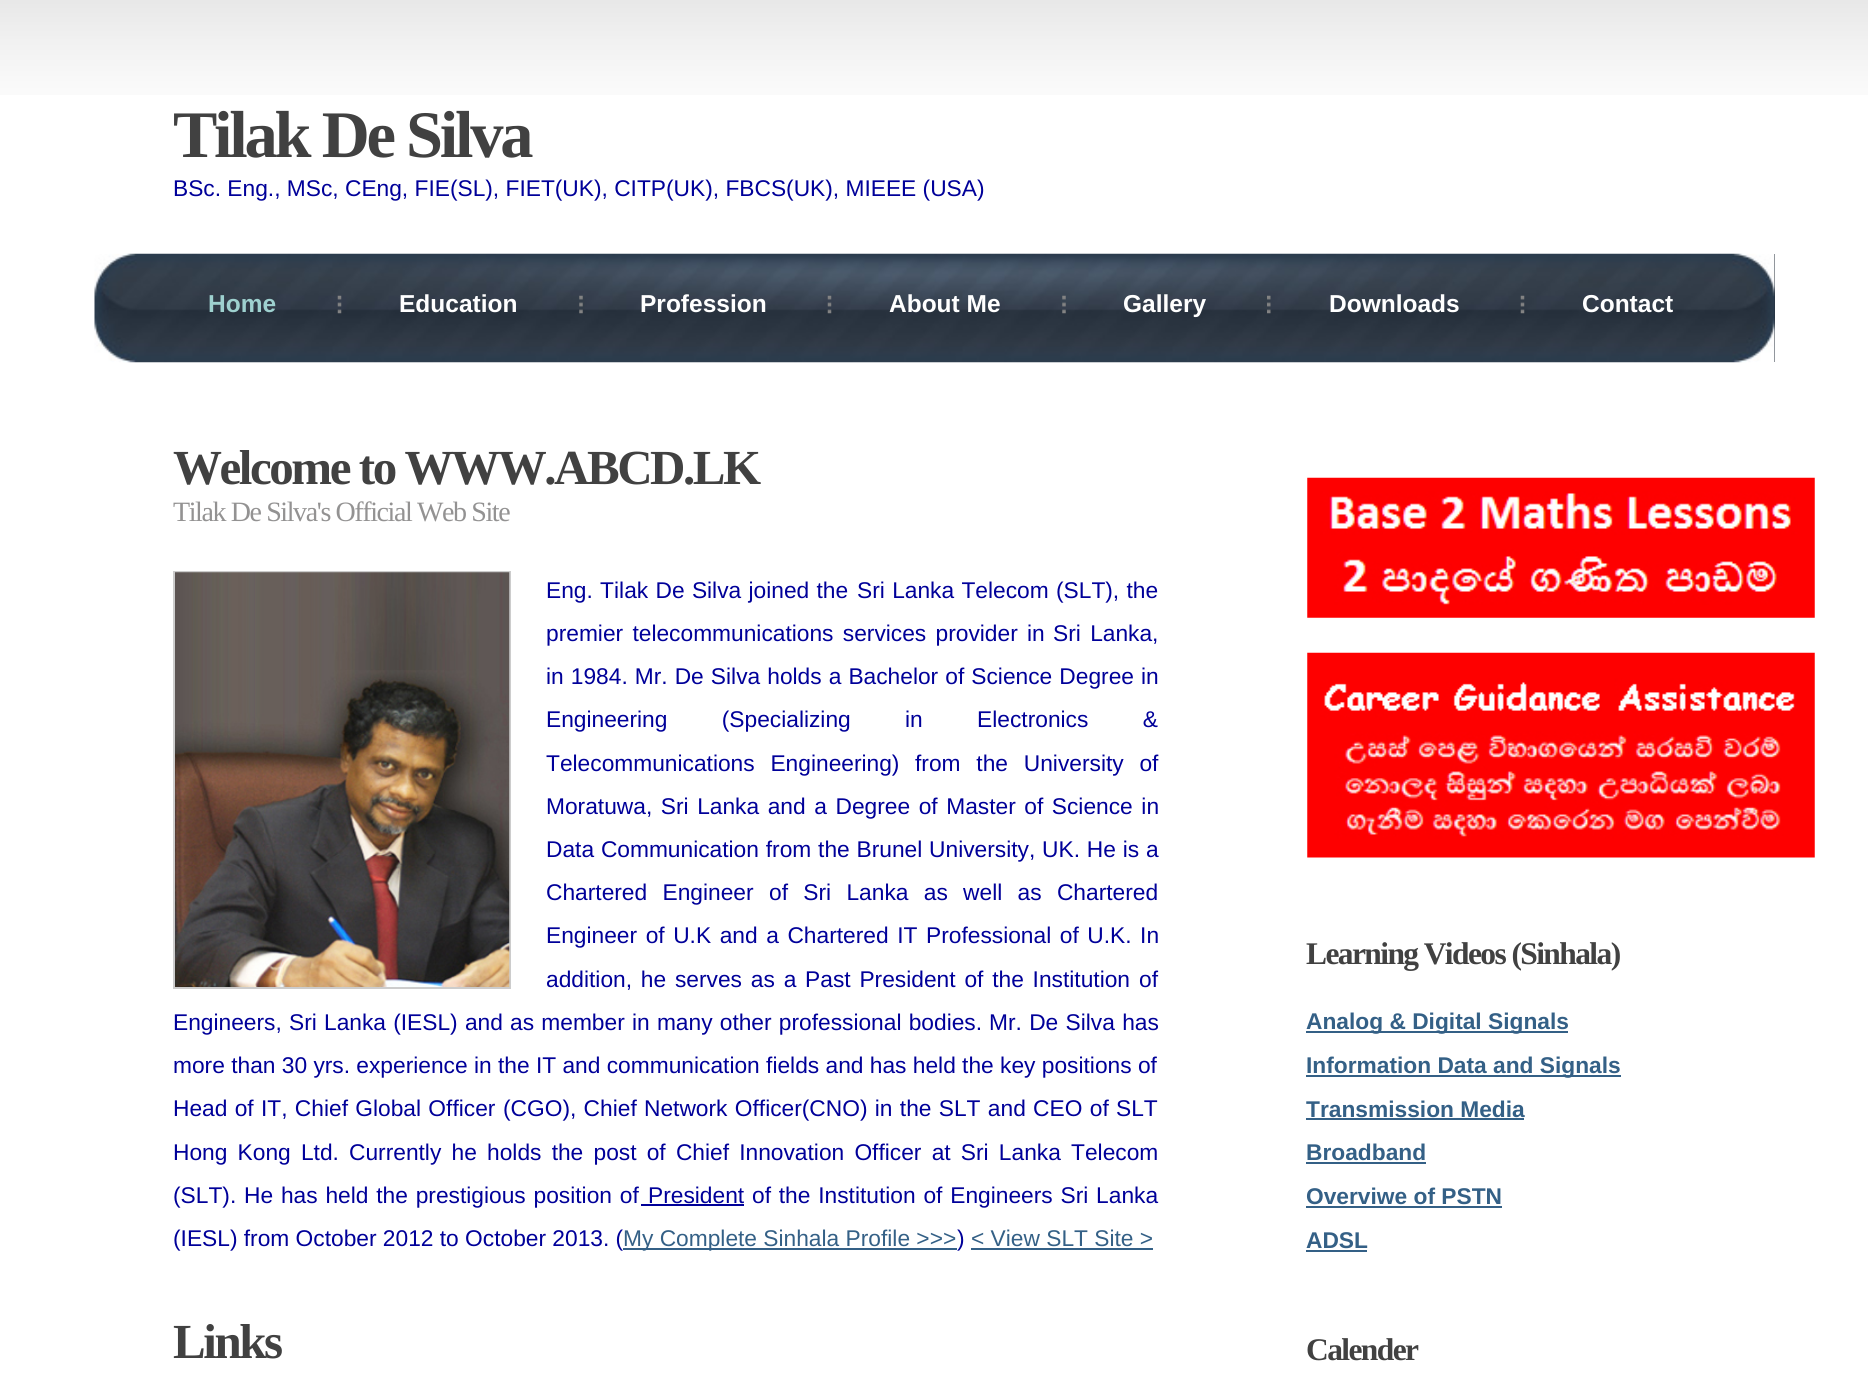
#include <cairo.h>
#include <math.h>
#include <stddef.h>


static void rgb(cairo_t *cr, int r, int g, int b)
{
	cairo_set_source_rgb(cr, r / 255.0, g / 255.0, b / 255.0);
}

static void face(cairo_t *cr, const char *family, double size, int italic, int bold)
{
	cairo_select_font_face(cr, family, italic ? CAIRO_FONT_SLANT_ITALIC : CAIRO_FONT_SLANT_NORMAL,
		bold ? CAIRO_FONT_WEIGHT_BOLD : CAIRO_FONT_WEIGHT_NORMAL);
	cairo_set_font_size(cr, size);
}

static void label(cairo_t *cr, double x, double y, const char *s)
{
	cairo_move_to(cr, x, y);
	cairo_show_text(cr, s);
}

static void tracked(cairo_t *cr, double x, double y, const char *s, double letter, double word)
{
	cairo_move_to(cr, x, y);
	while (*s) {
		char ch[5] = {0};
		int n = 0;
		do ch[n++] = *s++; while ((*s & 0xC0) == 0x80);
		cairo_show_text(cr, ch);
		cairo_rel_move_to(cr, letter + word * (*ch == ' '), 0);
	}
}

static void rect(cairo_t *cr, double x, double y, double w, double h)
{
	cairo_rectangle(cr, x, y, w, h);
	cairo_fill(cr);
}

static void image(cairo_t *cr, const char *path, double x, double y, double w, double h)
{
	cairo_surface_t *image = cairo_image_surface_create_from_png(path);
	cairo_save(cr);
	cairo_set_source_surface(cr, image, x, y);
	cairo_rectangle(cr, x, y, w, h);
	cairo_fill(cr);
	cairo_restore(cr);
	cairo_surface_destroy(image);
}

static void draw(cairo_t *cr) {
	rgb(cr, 255, 255, 255);
	cairo_paint(cr);
	image(cr, "image0.png", 0, 0, 1868, 95);
	face(cr, "Liberation Serif", 66.5, 0, 1);
	rgb(cr, 65, 65, 65);
	tracked(cr, 173, 157, "Tilak De Silva", -3.25, 0);
	face(cr, "Liberation Sans", 22.75, 0, 0);
	rgb(cr, 0, 0, 153);
	label(cr, 173, 196, "BSc. Eng., MSc, CEng, FIE(SL), FIET(UK), CITP(UK), FBCS(UK), MIEEE (USA)");
	rgb(cr, 37, 46, 58);
	rect(cr, 1774, 254, 1, 108);
	image(cr, "image1.png", 94, 253, 1681, 110);
	face(cr, "Liberation Sans", 24.5, 0, 1);
	rgb(cr, 158, 209, 207);
	label(cr, 208, 312, "Home");
	image(cr, "image2.png", 337, 295, 5, 19);
	rgb(cr, 255, 255, 255);
	label(cr, 399, 312, "Education");
	image(cr, "image3.png", 579, 295, 4, 19);
	label(cr, 640, 312, "Profession");
	image(cr, "image4.png", 827, 295, 5, 19);
	label(cr, 889, 312, "About Me");
	image(cr, "image5.png", 1062, 295, 4, 19);
	label(cr, 1123, 312, "Gallery");
	image(cr, "image6.png", 1267, 295, 4, 19);
	label(cr, 1329, 312, "Downloads");
	image(cr, "image7.png", 1520, 295, 5, 19);
	label(cr, 1582, 312, "Contact");
	face(cr, "Liberation Serif", 49, 0, 1);
	rgb(cr, 65, 65, 65);
	tracked(cr, 173, 484, "Welcome to WWW.ABCD.LK", -2.45, 0);
	face(cr, "Liberation Serif", 28, 0, 0);
	rgb(cr, 147, 146, 146);
	tracked(cr, 173, 521, "Tilak De Silva's Official Web Site", -1.4, 0);
	cairo_rectangle(cr, 174, 572, 336, 416);
	rgb(cr, 204, 204, 204);
	cairo_stroke(cr);
	image(cr, "image8.png", 175, 572, 335, 415);
	face(cr, "Liberation Sans", 22.75, 0, 0);
	rgb(cr, 0, 0, 153);
	tracked(cr, 546, 598, "Eng. Tilak De Silva joined the", 0, 1);
	tracked(cr, 857, 598, "Sri Lanka Telecom (SLT), the", 0, 1);
	tracked(cr, 546, 641, "premier telecommunications services provider in", 0, 3);
	tracked(cr, 1053, 641, "Sri Lanka,", 0, 3);
	tracked(cr, 546, 684, "in 1984. Mr. De Silva holds a Bachelor of Science Degree in", 0, 0.75);
	tracked(cr, 546, 727, "Engineering (Specializing in Electronics &", 0, 48);
	tracked(cr, 546, 771, "Telecommunications Engineering)", 0, 9.5);
	tracked(cr, 915, 771, "from the University of", 0, 9.5);
	tracked(cr, 546, 814, "Moratuwa, Sri Lanka and a Degree of Master of Science in", 0, 2.25);
	tracked(cr, 546, 857, "Data Communication from the Brunel University, UK. He is a", 0, 0.5);
	tracked(cr, 546, 900, "Chartered Engineer", 0, 9);
	tracked(cr, 769, 900, "of Sri Lanka as well as Chartered", 0, 9);
	tracked(cr, 546, 943, "Engineer of U.K and a Chartered IT", 0, 2.25);
	tracked(cr, 926, 943, "Professional of U.K. In", 0, 2.25);
	tracked(cr, 546, 987, "addition, he serves as a Past President of the Institution", 0, 2.5);
	label(cr, 1139, 987, "of");
	tracked(cr, 173, 1030, "Engineers, Sri Lanka (IESL) and as member in many other professional bodies.", 0, 0.9);
	tracked(cr, 989, 1030, "Mr. De Silva has", 0, 1);
	label(cr, 173, 1073, "more than 30 yrs. experience in the IT and communication fields and has held the key positions of");
	tracked(cr, 173, 1116, "Head of IT, Chief Global Officer", 0, 1);
	tracked(cr, 503, 1116, "(CGO), Chief Network Officer(CNO) in the SLT and CEO of SLT", 0, 1);
	tracked(cr, 173, 1160, "Hong Kong Ltd.", 0, 3.9);
	tracked(cr, 349, 1160, "Currently he holds the post of Chief Innovation Officer at Sri Lanka Telecom", 0, 3.9);
	tracked(cr, 173, 1203, "(SLT). He has held the prestigious position of", 0, 1.5);
	label(cr, 648, 1203, "President");
	rect(cr, 641, 1204, 103, 2);
	tracked(cr, 752, 1203, "of the Institution of Engineers Sri Lanka", 0, 1.5);
	label(cr, 173, 1246, "(IESL) from October 2012 to October 2013. (");
	rgb(cr, 52, 96, 134);
	rect(cr, 623, 1248, 334, 2);
	label(cr, 623, 1246, "My Complete Sinhala Profile >>>");
	rgb(cr, 0, 0, 153);
	label(cr, 957, 1246, ")");
	rgb(cr, 52, 96, 134);
	label(cr, 971, 1246, "< View SLT Site >");
	rect(cr, 971, 1248, 182, 2);
	face(cr, "Liberation Serif", 49, 0, 1);
	rgb(cr, 65, 65, 65);
	tracked(cr, 173, 1358, "Links", -2.45, 0);
	image(cr, "image9.png", 1307, 477, 508, 141);
	image(cr, "image10.png", 1307, 652, 508, 206);
	face(cr, "Liberation Serif", 31.5, 0, 1);
	tracked(cr, 1306, 964, "Learning Videos (Sinhala)", -1.6, 0);
	rgb(cr, 52, 96, 134);
	rect(cr, 1306, 1031, 262, 2);
	face(cr, "Liberation Sans", 22.75, 0, 1);
	label(cr, 1306, 1029, "Analog & Digital Signals");
	rect(cr, 1306, 1075, 315, 2);
	label(cr, 1306, 1073, "Information Data and Signals");
	label(cr, 1306, 1117, "Transmission Media");
	rect(cr, 1306, 1118, 218, 2);
	label(cr, 1306, 1160, "Broadband");
	rect(cr, 1306, 1162, 120, 2);
	label(cr, 1306, 1204, "Overviwe of PSTN");
	rect(cr, 1306, 1206, 196, 2);
	label(cr, 1306, 1248, "ADSL");
	rect(cr, 1306, 1250, 61, 2);
	face(cr, "Liberation Serif", 31.5, 0, 1);
	rgb(cr, 65, 65, 65);
	tracked(cr, 1306, 1360, "Calender", -1.6, 0);
}

int main(void) {
	cairo_surface_t *surface = cairo_image_surface_create(CAIRO_FORMAT_RGB24, 1868, 1378);
	cairo_t *cr = cairo_create(surface);
	cairo_font_options_t *options = cairo_font_options_create();
	cairo_font_options_set_hint_metrics(options, CAIRO_HINT_METRICS_OFF);
	cairo_font_options_set_hint_style(options, CAIRO_HINT_STYLE_NONE);
	cairo_set_font_options(cr, options);
	cairo_set_miter_limit(cr, 4);
	draw(cr);
	cairo_surface_write_to_png(surface, "render.png");
	cairo_font_options_destroy(options);
	cairo_destroy(cr);
	cairo_surface_destroy(surface);
	return 0;
}
